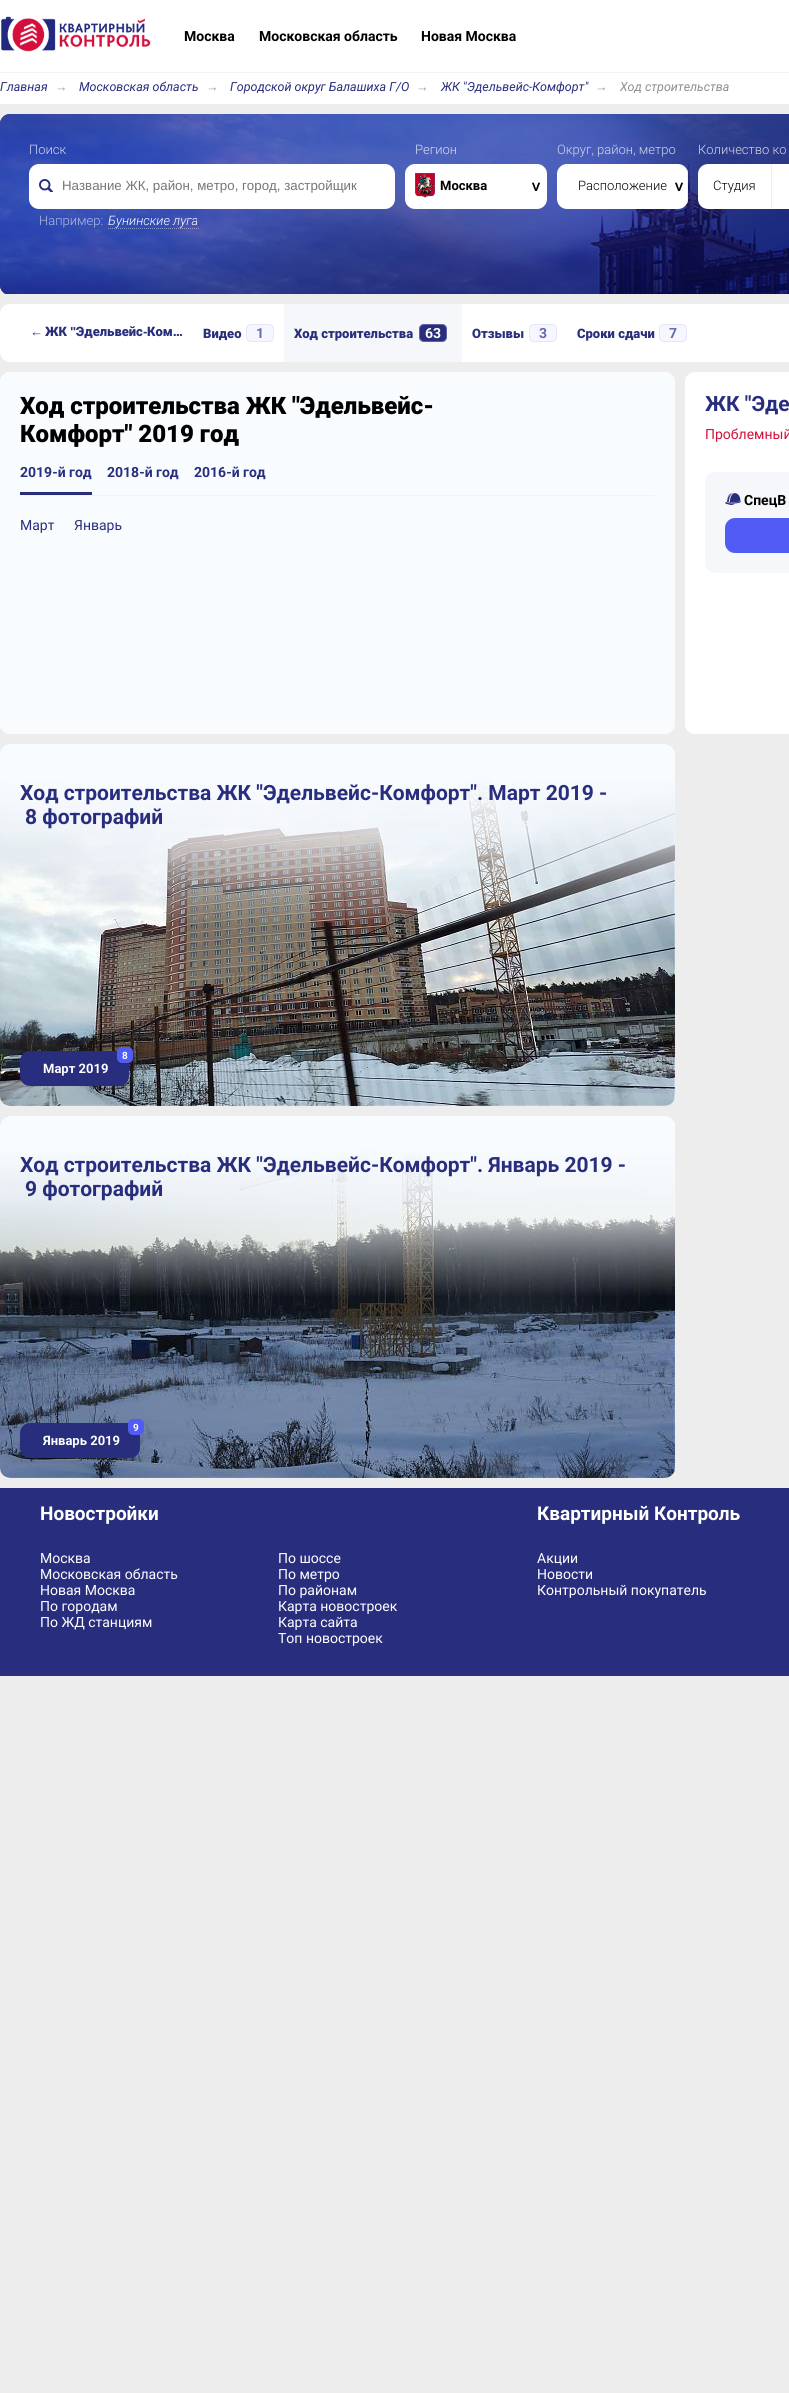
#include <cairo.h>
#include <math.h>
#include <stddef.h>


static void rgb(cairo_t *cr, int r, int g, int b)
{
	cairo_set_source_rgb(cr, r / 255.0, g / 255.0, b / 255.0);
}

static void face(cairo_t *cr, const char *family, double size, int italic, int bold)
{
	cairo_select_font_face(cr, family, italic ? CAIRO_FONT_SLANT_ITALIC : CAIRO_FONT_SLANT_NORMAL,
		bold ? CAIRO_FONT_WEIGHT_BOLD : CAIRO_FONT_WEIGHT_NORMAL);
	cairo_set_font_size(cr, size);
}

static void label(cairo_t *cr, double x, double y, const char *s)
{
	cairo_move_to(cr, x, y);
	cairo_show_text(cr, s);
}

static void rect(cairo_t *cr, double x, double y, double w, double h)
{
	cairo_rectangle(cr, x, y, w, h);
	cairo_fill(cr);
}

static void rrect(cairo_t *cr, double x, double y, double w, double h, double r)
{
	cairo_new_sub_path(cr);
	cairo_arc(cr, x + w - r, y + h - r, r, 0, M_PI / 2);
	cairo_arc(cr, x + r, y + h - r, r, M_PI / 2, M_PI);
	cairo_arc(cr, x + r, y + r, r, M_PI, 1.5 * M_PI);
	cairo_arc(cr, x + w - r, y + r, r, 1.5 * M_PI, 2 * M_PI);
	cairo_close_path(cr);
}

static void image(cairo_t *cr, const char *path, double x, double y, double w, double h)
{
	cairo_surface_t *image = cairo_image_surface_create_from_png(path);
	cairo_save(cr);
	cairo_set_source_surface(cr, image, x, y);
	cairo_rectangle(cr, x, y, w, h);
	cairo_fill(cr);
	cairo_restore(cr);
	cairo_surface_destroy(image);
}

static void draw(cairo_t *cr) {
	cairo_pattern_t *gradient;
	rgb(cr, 237, 237, 238);
	cairo_paint(cr);
	rgb(cr, 255, 255, 255);
	rect(cr, 0, 0, 789, 104);
	image(cr, "image0.png", 1, 16, 150, 36);
	face(cr, "Roboto", 14, 0, 1);
	rgb(cr, 0, 0, 0);
	label(cr, 184, 41, "Москва");
	label(cr, 259, 41, "Московская область");
	label(cr, 421, 41, "Новая Москва");
	rgb(cr, 243, 243, 243);
	rect(cr, 0, 72, 789, 1);
	face(cr, "Roboto", 12.5, 1, 0);
	rgb(cr, 40, 46, 125);
	label(cr, 0, 91, "Главная");
	face(cr, "Liberation Sans", 12.5, 1, 0);
	rgb(cr, 151, 151, 151);
	label(cr, 55, 91, "→");
	face(cr, "Roboto", 12.5, 1, 0);
	rgb(cr, 40, 46, 125);
	label(cr, 79, 91, "Московская область");
	face(cr, "Liberation Sans", 12.5, 1, 0);
	rgb(cr, 151, 151, 151);
	label(cr, 206, 91, "→");
	face(cr, "Roboto", 12.5, 1, 0);
	rgb(cr, 40, 46, 125);
	label(cr, 230, 91, "Городской округ Балашиха Г/О");
	face(cr, "Liberation Sans", 12.5, 1, 0);
	rgb(cr, 151, 151, 151);
	label(cr, 416, 91, "→");
	face(cr, "Roboto", 12.5, 1, 0);
	rgb(cr, 40, 46, 125);
	label(cr, 441, 91, "ЖК \"Эдельвейс-Комфорт\"");
	face(cr, "Liberation Sans", 12.5, 1, 0);
	rgb(cr, 151, 151, 151);
	label(cr, 595, 91, "→");
	face(cr, "Roboto", 12.5, 1, 0);
	rgb(cr, 142, 142, 142);
	label(cr, 620, 91, "Ход строительства");
	image(cr, "image1.png", 0, 114, 789, 180);
	rgb(cr, 255, 255, 255);
	rrect(cr, 29, 164, 366, 45, 10);
	cairo_fill(cr);
	face(cr, "Roboto Light", 13, 0, 0);
	rgb(cr, 208, 214, 238);
	label(cr, 29, 154, "Поиск");
	image(cr, "image2.png", 39, 179, 14, 13);
	face(cr, "Liberation Sans", 13.3, 0, 0);
	rgb(cr, 117, 117, 117);
	label(cr, 62, 190, "Название ЖК, район, метро, город, застройщик");
	face(cr, "Roboto Light", 13, 0, 0);
	rgb(cr, 178, 187, 227);
	label(cr, 39, 225, "Например:");
	face(cr, "Roboto Light", 13, 1, 0);
	rgb(cr, 255, 255, 255);
	label(cr, 108, 225, "Бунинские луга");
	cairo_new_path(cr);
	cairo_move_to(cr, 108, 228.5);
	cairo_line_to(cr, 199, 228.5);
	cairo_set_source_rgba(cr, 1, 1, 1, 0.43);
	cairo_set_line_width(cr, 1);
	cairo_set_dash(cr, (double[]){1, 1}, 2, 0);
	cairo_stroke(cr);
	rgb(cr, 255, 255, 255);
	rrect(cr, 405, 164, 142, 45, 10);
	cairo_fill(cr);
	face(cr, "Roboto Light", 13, 0, 0);
	rgb(cr, 215, 220, 240);
	label(cr, 415, 154, "Регион");
	image(cr, "image3.png", 415, 173, 20, 25);
	face(cr, "Roboto", 13, 0, 1);
	rgb(cr, 0, 0, 0);
	label(cr, 440, 190, "Москва");
	face(cr, "DejaVu Sans Mono", 16, 0, 1);
	cairo_save(cr);
	cairo_translate(cr, 531, 182);
	cairo_rotate(cr, 90 * M_PI / 180);
	label(cr, 0, 0, ">");
	cairo_restore(cr);
	rgb(cr, 255, 255, 255);
	rrect(cr, 557, 164, 131, 45, 10);
	cairo_fill(cr);
	face(cr, "Roboto Light", 13, 0, 0);
	rgb(cr, 208, 214, 238);
	label(cr, 557, 154, "Округ, район, метро");
	cairo_save(cr);
	rrect(cr, 557, 164, 131, 45, 10);
	cairo_clip(cr);
	rgb(cr, 239, 239, 239);
	rect(cr, 687, 164, 1, 45);
	cairo_restore(cr);
	rgb(cr, 0, 0, 0);
	label(cr, 578, 190, "Расположение");
	face(cr, "DejaVu Sans Mono", 16, 0, 1);
	cairo_save(cr);
	cairo_translate(cr, 674, 182);
	cairo_rotate(cr, 90 * M_PI / 180);
	label(cr, 0, 0, ">");
	cairo_restore(cr);
	rgb(cr, 255, 255, 255);
	rrect(cr, 698, 164, 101, 45, 10);
	cairo_fill(cr);
	face(cr, "Roboto Light", 13, 0, 0);
	rgb(cr, 209, 212, 229);
	label(cr, 698, 154, "Количество ко");
	rgb(cr, 239, 239, 239);
	rect(cr, 771, 164, 1, 45);
	rgb(cr, 0, 0, 0);
	label(cr, 713, 190, "Студия");
	rgb(cr, 255, 255, 255);
	rrect(cr, 0, 304, 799, 58, 10);
	cairo_fill(cr);
	face(cr, "Roboto Black", 13, 0, 0);
	rgb(cr, 40, 46, 125);
	label(cr, 45, 336, "ЖК");
	face(cr, "Liberation Sans", 13, 0, 1);
	label(cr, 70, 336, "\"");
	face(cr, "Roboto Black", 13, 0, 0);
	label(cr, 76, 336, "Эдельвейс");
	label(cr, 147, 336, "Ком…");
	face(cr, "Liberation Sans", 13, 0, 1);
	label(cr, 30, 336, "←");
	label(cr, 143, 336, "-");
	face(cr, "Roboto Black", 13, 0, 0);
	label(cr, 203, 338, "Видео");
	rgb(cr, 246, 246, 255);
	rrect(cr, 246, 324, 28, 18, 5);
	cairo_fill(cr);
	rrect(cr, 246.5, 324.5, 27, 17, 4.5);
	cairo_set_source_rgba(cr, 0.788, 0.792, 0.918, 0.35);
	cairo_set_dash(cr, NULL, 0, 0);
	cairo_stroke(cr);
	face(cr, "Roboto", 14, 0, 1);
	rgb(cr, 101, 106, 175);
	label(cr, 256, 338, "1");
	rgb(cr, 246, 247, 251);
	rect(cr, 284, 304, 178, 58);
	face(cr, "Roboto Black", 13, 0, 0);
	rgb(cr, 40, 46, 125);
	label(cr, 294, 338, "Ход строительства");
	rrect(cr, 419, 324, 28, 18, 5);
	cairo_fill(cr);
	rrect(cr, 419.5, 324.5, 27, 17, 4.5);
	cairo_set_source_rgba(cr, 0.788, 0.792, 0.918, 0.35);
	cairo_stroke(cr);
	face(cr, "Roboto", 14, 0, 1);
	rgb(cr, 255, 255, 255);
	label(cr, 425, 338, "63");
	face(cr, "Roboto Black", 13, 0, 0);
	rgb(cr, 40, 46, 125);
	label(cr, 472, 338, "Отзывы");
	rgb(cr, 246, 246, 255);
	rrect(cr, 529, 324, 28, 18, 5);
	cairo_fill(cr);
	rrect(cr, 529.5, 324.5, 27, 17, 4.5);
	cairo_set_source_rgba(cr, 0.788, 0.792, 0.918, 0.35);
	cairo_stroke(cr);
	face(cr, "Roboto", 14, 0, 1);
	rgb(cr, 101, 106, 175);
	label(cr, 539, 338, "3");
	face(cr, "Roboto Black", 13, 0, 0);
	rgb(cr, 40, 46, 125);
	label(cr, 577, 338, "Сроки сдачи");
	rgb(cr, 246, 246, 255);
	rrect(cr, 659, 324, 28, 18, 5);
	cairo_fill(cr);
	rrect(cr, 659.5, 324.5, 27, 17, 4.5);
	cairo_set_source_rgba(cr, 0.788, 0.792, 0.918, 0.35);
	cairo_stroke(cr);
	face(cr, "Roboto", 14, 0, 1);
	rgb(cr, 101, 106, 175);
	label(cr, 669, 338, "7");
	rgb(cr, 249, 252, 255);
	rrect(cr, 0, 372, 675, 362, 10);
	cairo_fill(cr);
	face(cr, "Roboto Black", 24, 0, 0);
	rgb(cr, 0, 0, 0);
	label(cr, 20, 414, "Ход строительства ЖК \"Эдельвейс-");
	label(cr, 20, 442, "Комфорт\" 2019 год");
	rgb(cr, 243, 243, 243);
	rect(cr, 20, 495, 635, 1);
	rgb(cr, 40, 46, 125);
	rect(cr, 20, 492, 72, 3);
	face(cr, "Roboto", 14, 0, 1);
	label(cr, 20, 477, "2019-й год");
	face(cr, "Roboto", 14, 0, 0);
	label(cr, 20, 530, "Март");
	label(cr, 74, 530, "Январь");
	face(cr, "Roboto", 14, 0, 1);
	label(cr, 107, 477, "2018-й год");
	label(cr, 194, 477, "2016-й год");
	image(cr, "image4.png", 0, 744, 675, 362);
	gradient = cairo_pattern_create_linear(338, 744, 338, 1106);
	cairo_pattern_add_color_stop_rgba(gradient, 0.09, 0.976, 0.988, 1, 1);
	cairo_pattern_add_color_stop_rgba(gradient, 0.23, 0.961, 0.973, 0.988, 0.82);
	cairo_pattern_add_color_stop_rgba(gradient, 0.5, 0.961, 0.973, 0.988, 0);
	cairo_set_source(cr, gradient);
	cairo_pattern_destroy(gradient);
	rrect(cr, 0, 744, 675, 362, 10);
	cairo_fill(cr);
	face(cr, "Roboto", 21, 0, 1);
	rgb(cr, 40, 46, 125);
	label(cr, 20, 800, "Ход строительства ЖК \"Эдельвейс-Комфорт\". Март 2019 -");
	label(cr, 25, 824, "8 фотографий");
	rrect(cr, 20, 1051, 109, 35, 10);
	cairo_fill(cr);
	rgb(cr, 81, 92, 246);
	rrect(cr, 117, 1047, 16, 16, 5);
	cairo_fill(cr);
	face(cr, "Roboto", 10, 0, 1);
	rgb(cr, 249, 252, 255);
	label(cr, 122, 1059, "8");
	face(cr, "Roboto", 13, 0, 1);
	rgb(cr, 255, 255, 255);
	label(cr, 43, 1073, "Март 2019");
	image(cr, "image5.png", 0, 1116, 675, 362);
	gradient = cairo_pattern_create_linear(338, 1116, 338, 1478);
	cairo_pattern_add_color_stop_rgba(gradient, 0.09, 0.976, 0.988, 1, 1);
	cairo_pattern_add_color_stop_rgba(gradient, 0.23, 0.961, 0.973, 0.988, 0.82);
	cairo_pattern_add_color_stop_rgba(gradient, 0.5, 0.961, 0.973, 0.988, 0);
	cairo_set_source(cr, gradient);
	cairo_pattern_destroy(gradient);
	rrect(cr, 0, 1116, 675, 362, 10);
	cairo_fill(cr);
	face(cr, "Roboto", 21, 0, 1);
	rgb(cr, 40, 46, 125);
	label(cr, 20, 1172, "Ход строительства ЖК \"Эдельвейс-Комфорт\". Январь 2019 -");
	label(cr, 25, 1196, "9 фотографий");
	rrect(cr, 20, 1423, 120, 35, 10);
	cairo_fill(cr);
	rgb(cr, 81, 92, 246);
	rrect(cr, 128, 1419, 16, 16, 5);
	cairo_fill(cr);
	face(cr, "Roboto", 10, 0, 1);
	rgb(cr, 249, 252, 255);
	label(cr, 133, 1431, "9");
	face(cr, "Roboto", 13, 0, 1);
	rgb(cr, 255, 255, 255);
	label(cr, 43, 1445, "Январь 2019");
	rrect(cr, 685, 372, 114, 362, 10);
	cairo_fill(cr);
	face(cr, "Roboto", 21, 0, 1);
	rgb(cr, 40, 46, 125);
	label(cr, 705, 411, "ЖК \"Эде");
	face(cr, "Roboto", 14, 0, 0);
	rgb(cr, 213, 15, 59);
	label(cr, 705, 439, "Проблемный");
	rgb(cr, 246, 247, 251);
	rrect(cr, 705, 472, 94, 101, 10);
	cairo_fill(cr);
	image(cr, "image6.png", 725, 493, 16, 12);
	face(cr, "Roboto", 14, 0, 1);
	rgb(cr, 0, 0, 0);
	label(cr, 744, 505, "СпецВ");
	rgb(cr, 81, 92, 246);
	rrect(cr, 725, 518, 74, 35, 10);
	cairo_fill(cr);
	rgb(cr, 40, 46, 125);
	rect(cr, 0, 1488, 789, 188);
	face(cr, "Roboto", 19, 0, 1);
	rgb(cr, 255, 255, 255);
	label(cr, 40, 1520, "Новостройки");
	face(cr, "Roboto", 14, 0, 0);
	label(cr, 40, 1563, "Москва");
	label(cr, 40, 1579, "Московская область");
	label(cr, 40, 1595, "Новая Москва");
	label(cr, 40, 1611, "По городам");
	label(cr, 40, 1627, "По ЖД станциям");
	label(cr, 278, 1563, "По шоссе");
	label(cr, 278, 1579, "По метро");
	label(cr, 278, 1595, "По районам");
	label(cr, 278, 1611, "Карта новостроек");
	label(cr, 278, 1627, "Карта сайта");
	label(cr, 278, 1643, "Топ новостроек");
	face(cr, "Roboto", 19, 0, 1);
	label(cr, 537, 1520, "Квартирный Контроль");
	face(cr, "Roboto", 14, 0, 0);
	label(cr, 537, 1563, "Акции");
	label(cr, 537, 1579, "Новости");
	label(cr, 537, 1595, "Контрольный покупатель");
}

int main(void) {
	cairo_surface_t *surface = cairo_image_surface_create(CAIRO_FORMAT_RGB24, 789, 2393);
	cairo_t *cr = cairo_create(surface);
	cairo_font_options_t *options = cairo_font_options_create();
	cairo_font_options_set_hint_metrics(options, CAIRO_HINT_METRICS_OFF);
	cairo_font_options_set_hint_style(options, CAIRO_HINT_STYLE_NONE);
	cairo_set_font_options(cr, options);
	cairo_set_miter_limit(cr, 4);
	draw(cr);
	cairo_surface_write_to_png(surface, "render.png");
	cairo_font_options_destroy(options);
	cairo_destroy(cr);
	cairo_surface_destroy(surface);
	return 0;
}
